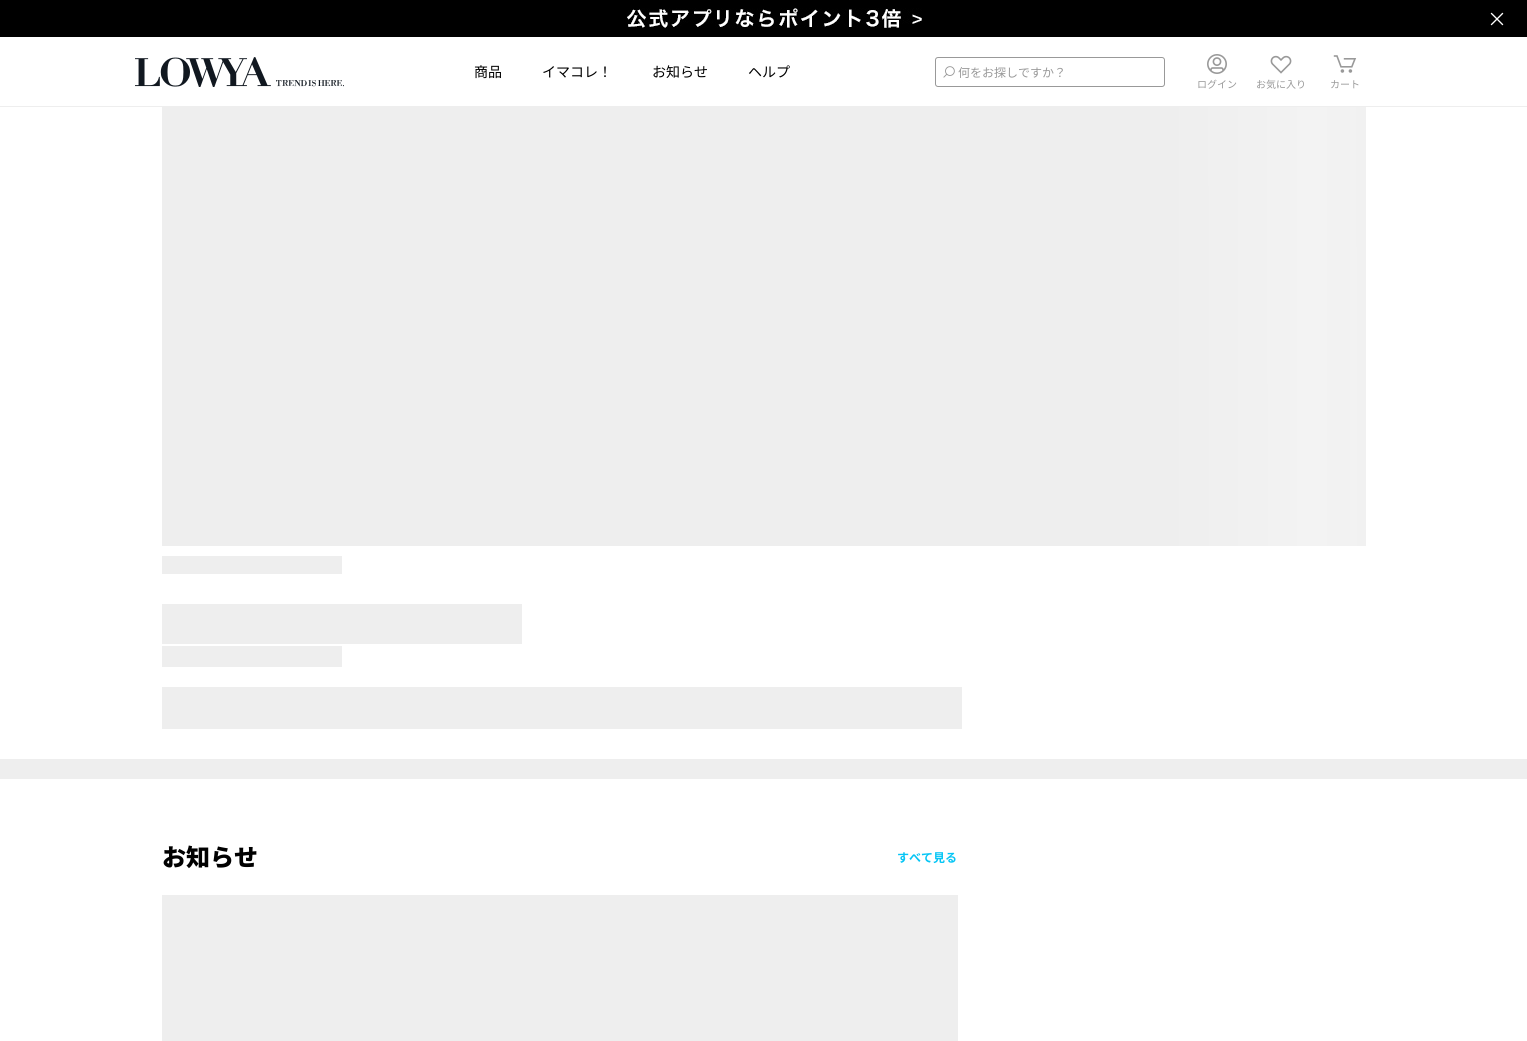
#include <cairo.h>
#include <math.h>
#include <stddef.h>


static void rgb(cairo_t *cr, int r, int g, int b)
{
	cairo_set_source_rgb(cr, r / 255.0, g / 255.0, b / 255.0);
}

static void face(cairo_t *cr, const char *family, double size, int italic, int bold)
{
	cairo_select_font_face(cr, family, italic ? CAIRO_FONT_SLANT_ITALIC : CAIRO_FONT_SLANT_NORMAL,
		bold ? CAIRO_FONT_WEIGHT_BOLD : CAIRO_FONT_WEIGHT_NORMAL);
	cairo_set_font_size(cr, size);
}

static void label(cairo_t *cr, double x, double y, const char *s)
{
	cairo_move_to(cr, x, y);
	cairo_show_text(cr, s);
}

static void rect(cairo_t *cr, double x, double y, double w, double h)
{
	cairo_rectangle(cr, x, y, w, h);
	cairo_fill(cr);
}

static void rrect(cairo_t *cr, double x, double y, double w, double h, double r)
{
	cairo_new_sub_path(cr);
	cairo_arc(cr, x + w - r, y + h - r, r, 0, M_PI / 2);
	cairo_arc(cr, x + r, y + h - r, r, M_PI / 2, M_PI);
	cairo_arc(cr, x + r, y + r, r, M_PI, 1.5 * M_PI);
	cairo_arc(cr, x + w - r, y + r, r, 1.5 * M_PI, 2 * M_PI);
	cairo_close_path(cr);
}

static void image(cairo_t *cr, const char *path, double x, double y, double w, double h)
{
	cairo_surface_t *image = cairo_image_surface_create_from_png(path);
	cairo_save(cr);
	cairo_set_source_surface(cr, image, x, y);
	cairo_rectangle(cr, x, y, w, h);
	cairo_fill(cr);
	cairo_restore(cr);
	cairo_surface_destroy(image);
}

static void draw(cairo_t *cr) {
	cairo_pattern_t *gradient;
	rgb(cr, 255, 255, 255);
	cairo_paint(cr);
	rgb(cr, 0, 0, 0);
	rect(cr, 0, 0, 1527, 37);
	image(cr, "image0.png", 627, 8, 295, 20);
	image(cr, "image1.png", 1490, 12, 14, 14);
	rgb(cr, 238, 238, 238);
	rect(cr, 0, 106, 1527, 1);
	image(cr, "image2.png", 135, 57, 209, 30);
	face(cr, "Noto Sans JP", 14, 0, 0);
	rgb(cr, 0, 0, 0);
	label(cr, 474, 77, "商品");
	label(cr, 542, 77, "イマコレ！");
	label(cr, 652, 77, "お知らせ");
	label(cr, 748, 77, "ヘルプ");
	rrect(cr, 935.5, 57.5, 229, 29, 2.5);
	rgb(cr, 153, 153, 153);
	cairo_set_line_width(cr, 1);
	cairo_stroke(cr);
	image(cr, "image3.png", 943, 66, 12, 12);
	face(cr, "Noto Sans JP", 12, 0, 0);
	label(cr, 958, 77, "何をお探しですか？");
	image(cr, "image4.png", 1207, 54, 20, 20);
	face(cr, "Noto Sans JP", 10, 0, 0);
	label(cr, 1197, 88, "ログイン");
	image(cr, "image5.png", 1270, 55, 22, 19);
	label(cr, 1256, 88, "お気に入り");
	image(cr, "image6.png", 1333, 55, 24, 18);
	label(cr, 1330, 88, "カート");
	rgb(cr, 238, 238, 238);
	rect(cr, 162, 107, 1000, 439);
	gradient = cairo_pattern_create_linear(1162, 327, 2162, 326);
	cairo_pattern_add_color_stop_rgba(gradient, 0, 0.933, 0.933, 0.933, 1);
	cairo_pattern_add_color_stop_rgba(gradient, 0.15, 0.953, 0.953, 0.953, 1);
	cairo_pattern_add_color_stop_rgba(gradient, 0.3, 0.933, 0.933, 0.933, 1);
	cairo_set_source(cr, gradient);
	cairo_pattern_destroy(gradient);
	rect(cr, 1162, 107, 204, 439);
	rgb(cr, 238, 238, 238);
	rect(cr, 162, 556, 180, 18);
	rect(cr, 162, 604, 360, 40);
	rect(cr, 162, 646, 180, 21);
	rect(cr, 162, 687, 800, 42);
	rect(cr, 0, 759, 1527, 20);
	face(cr, "Noto Sans JP Black", 24, 0, 0);
	rgb(cr, 0, 0, 0);
	label(cr, 162, 866, "お知らせ");
	face(cr, "Noto Sans JP", 12, 0, 1);
	rgb(cr, 5, 197, 245);
	label(cr, 897, 862, "すべて見る");
	rgb(cr, 238, 238, 238);
	rect(cr, 162, 895, 796, 146);
}

int main(void) {
	cairo_surface_t *surface = cairo_image_surface_create(CAIRO_FORMAT_RGB24, 1527, 1041);
	cairo_t *cr = cairo_create(surface);
	cairo_font_options_t *options = cairo_font_options_create();
	cairo_font_options_set_hint_metrics(options, CAIRO_HINT_METRICS_OFF);
	cairo_font_options_set_hint_style(options, CAIRO_HINT_STYLE_NONE);
	cairo_set_font_options(cr, options);
	cairo_set_miter_limit(cr, 4);
	draw(cr);
	cairo_surface_write_to_png(surface, "render.png");
	cairo_font_options_destroy(options);
	cairo_destroy(cr);
	cairo_surface_destroy(surface);
	return 0;
}
